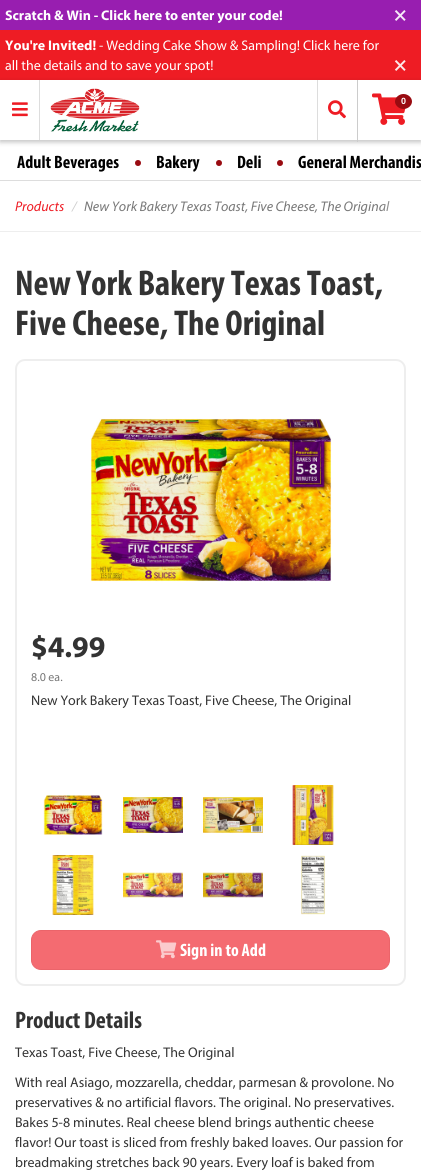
#include <cairo.h>
#include <math.h>
#include <stddef.h>


static void rgb(cairo_t *cr, int r, int g, int b)
{
	cairo_set_source_rgb(cr, r / 255.0, g / 255.0, b / 255.0);
}

static void face(cairo_t *cr, const char *family, double size, int italic, int bold)
{
	cairo_select_font_face(cr, family, italic ? CAIRO_FONT_SLANT_ITALIC : CAIRO_FONT_SLANT_NORMAL,
		bold ? CAIRO_FONT_WEIGHT_BOLD : CAIRO_FONT_WEIGHT_NORMAL);
	cairo_set_font_size(cr, size);
}

static void label(cairo_t *cr, double x, double y, const char *s)
{
	cairo_move_to(cr, x, y);
	cairo_show_text(cr, s);
}

static void rect(cairo_t *cr, double x, double y, double w, double h)
{
	cairo_rectangle(cr, x, y, w, h);
	cairo_fill(cr);
}

static void rrect(cairo_t *cr, double x, double y, double w, double h, double r)
{
	cairo_new_sub_path(cr);
	cairo_arc(cr, x + w - r, y + h - r, r, 0, M_PI / 2);
	cairo_arc(cr, x + r, y + h - r, r, M_PI / 2, M_PI);
	cairo_arc(cr, x + r, y + r, r, M_PI, 1.5 * M_PI);
	cairo_arc(cr, x + w - r, y + r, r, 1.5 * M_PI, 2 * M_PI);
	cairo_close_path(cr);
}

static void soft_shadow(cairo_t *cr, double x, double y, double w, double h, double r, double blur, double alpha)
{
	cairo_push_group_with_content(cr, CAIRO_CONTENT_ALPHA);
	cairo_set_operator(cr, CAIRO_OPERATOR_SOURCE);
	for (int i = 15; i >= -15 && fmin(w, h) + blur * i / 3 > 0; i -= 2) {
		double e = blur * i / 6;
		cairo_set_source_rgba(cr, 0, 0, 0, alpha * erfc((i - 1) / 8.5) / 2);
		rrect(cr, x - e, y - e, w + 2 * e, h + 2 * e, fmax(0, fmin(r + e + blur * .6, fmin(w, h) / 2 + e)));
		cairo_fill(cr);
	}
	cairo_pattern_t *soft = cairo_pop_group(cr);
	cairo_mask(cr, soft);
	cairo_pattern_destroy(soft);
}

static void image(cairo_t *cr, const char *path, double x, double y, double w, double h)
{
	cairo_surface_t *image = cairo_image_surface_create_from_png(path);
	cairo_save(cr);
	cairo_set_source_surface(cr, image, x, y);
	cairo_rectangle(cr, x, y, w, h);
	cairo_fill(cr);
	cairo_restore(cr);
	cairo_surface_destroy(image);
}

static void draw(cairo_t *cr) {
	cairo_pattern_t *gradient;
	rgb(cr, 255, 255, 255);
	cairo_paint(cr);
	rgb(cr, 152, 30, 176);
	rect(cr, 0, 0, 421, 30);
	face(cr, "Myriad", 14, 0, 1);
	rgb(cr, 255, 255, 255);
	label(cr, 5, 20, "Scratch & Win - Click here to enter your code!");
	face(cr, "Myriad", 21, 0, 1);
	rgb(cr, 245, 233, 247);
	label(cr, 394, 21, "×");
	rgb(cr, 238, 28, 36);
	rect(cr, 0, 30, 421, 50);
	face(cr, "Myriad", 14, 0, 1);
	rgb(cr, 255, 255, 255);
	label(cr, 5, 50, "You're Invited!");
	face(cr, "Myriad", 14, 0, 0);
	label(cr, 99, 50, "- Wedding Cake Show & Sampling! Click here for");
	label(cr, 5, 70, "all the details and to save your spot!");
	face(cr, "Myriad", 21, 0, 1);
	rgb(cr, 253, 232, 233);
	label(cr, 394, 71, "×");
	cairo_save(cr);
	cairo_set_fill_rule(cr, CAIRO_FILL_RULE_EVEN_ODD);
	cairo_new_path(cr);
	cairo_move_to(cr, 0, 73);
	cairo_line_to(cr, 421, 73);
	cairo_line_to(cr, 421, 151);
	cairo_line_to(cr, 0, 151);
	cairo_close_path(cr);
	cairo_move_to(cr, 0, 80);
	cairo_line_to(cr, 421, 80);
	cairo_line_to(cr, 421, 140);
	cairo_line_to(cr, 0, 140);
	cairo_close_path(cr);
	cairo_clip(cr);
	rgb(cr, 0, 0, 0);
	soft_shadow(cr, 0, 82, 421, 60, 0, 2.5, 0.25);
	cairo_restore(cr);
	rgb(cr, 221, 221, 221);
	rect(cr, 39, 80, 1, 60);
	image(cr, "image0.png", 12, 102, 16, 15);
	image(cr, "image1.png", 50, 88, 90, 44);
	rect(cr, 317, 80, 1, 60);
	image(cr, "image2.png", 328, 100, 18, 19);
	rgb(cr, 204, 204, 204);
	rect(cr, 357, 80, 1, 62);
	image(cr, "image3.png", 372, 93, 34, 32);
	rgb(cr, 153, 11, 17);
	cairo_new_path(cr);
	cairo_move_to(cr, 403.5, 94);
	cairo_curve_to(cr, 408, 94, 412, 97.5, 412, 101.5);
	cairo_curve_to(cr, 412, 105.5, 408, 109, 403.5, 109);
	cairo_curve_to(cr, 399, 109, 395, 105.5, 395, 101.5);
	cairo_curve_to(cr, 395, 97.5, 399, 94, 403.5, 94);
	cairo_close_path(cr);
	cairo_fill(cr);
	face(cr, "Liberation Sans", 9, 0, 1);
	rgb(cr, 255, 255, 255);
	label(cr, 401, 104, "0");
	face(cr, "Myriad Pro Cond", 18, 0, 1);
	rgb(cr, 0, 0, 0);
	label(cr, 17, 168, "Adult Beverages");
	rgb(cr, 153, 11, 17);
	cairo_new_path(cr);
	cairo_arc(cr, 138, 163, 3, 0, 2 * M_PI);
	cairo_fill(cr);
	rgb(cr, 0, 0, 0);
	label(cr, 156, 168, "Bakery");
	rgb(cr, 153, 11, 17);
	cairo_new_path(cr);
	cairo_arc(cr, 219, 163, 3, 0, 2 * M_PI);
	cairo_fill(cr);
	rgb(cr, 0, 0, 0);
	label(cr, 237, 168, "Deli");
	rgb(cr, 153, 11, 17);
	cairo_new_path(cr);
	cairo_arc(cr, 280, 163, 3, 0, 2 * M_PI);
	cairo_fill(cr);
	rgb(cr, 0, 0, 0);
	label(cr, 298, 168, "General Merchandis");
	rgb(cr, 221, 221, 221);
	rect(cr, 0, 180, 421, 1);
	rgb(cr, 238, 238, 238);
	rect(cr, 0, 231, 421, 1);
	face(cr, "Myriad", 14, 1, 0);
	rgb(cr, 238, 28, 36);
	label(cr, 15, 211, "Products");
	rgb(cr, 204, 204, 204);
	label(cr, 72, 211, "/");
	rgb(cr, 119, 119, 119);
	label(cr, 84, 211, "New York Bakery Texas Toast, Five Cheese, The Original");
	gradient = cairo_pattern_create_linear(381, 206, 421, 206);
	cairo_pattern_add_color_stop_rgba(gradient, 0, 1, 1, 1, 0);
	cairo_pattern_add_color_stop_rgba(gradient, 1, 1, 1, 1, 1);
	cairo_set_source(cr, gradient);
	cairo_pattern_destroy(gradient);
	rect(cr, 382, 201, 8, 10);
	face(cr, "Myriad Pro Cond", 36, 0, 1);
	rgb(cr, 51, 51, 51);
	label(cr, 15, 295, "New York Bakery Texas Toast,");
	cairo_save(cr);
	cairo_rectangle(cr, 15, 262, 391, 79);
	cairo_clip(cr);
	label(cr, 15, 335, "Five Cheese, The Original");
	cairo_restore(cr);
	rrect(cr, 16, 360, 389, 625, 9);
	rgb(cr, 238, 238, 238);
	cairo_stroke(cr);
	image(cr, "image4.png", 90, 418, 242, 164);
	face(cr, "Myriad", 30, 0, 1);
	rgb(cr, 51, 51, 51);
	label(cr, 31, 657, "$4.99");
	face(cr, "Myriad", 12, 0, 0);
	rgb(cr, 119, 119, 119);
	label(cr, 31, 681, "8.0 ea.");
	face(cr, "Myriad", 14, 0, 0);
	rgb(cr, 51, 51, 51);
	label(cr, 31, 705, "New York Bakery Texas Toast, Five Cheese, The Original");
	image(cr, "image5.png", 43, 795, 60, 40);
	image(cr, "image6.png", 123, 797, 60, 36);
	image(cr, "image7.png", 203, 797, 60, 36);
	image(cr, "image8.png", 292, 785, 42, 60);
	image(cr, "image9.png", 52, 855, 42, 60);
	image(cr, "image10.png", 123, 872, 60, 26);
	image(cr, "image11.png", 203, 872, 60, 26);
	image(cr, "image12.png", 301, 855, 24, 60);
	rgb(cr, 244, 107, 113);
	rrect(cr, 31.5, 930.5, 358, 39, 9.5);
	cairo_fill_preserve(cr);
	rgb(cr, 235, 100, 106);
	cairo_set_line_width(cr, 1);
	cairo_stroke(cr);
	image(cr, "image13.png", 156, 940, 21, 19);
	face(cr, "Myriad Pro Cond", 18, 0, 1);
	rgb(cr, 255, 255, 255);
	label(cr, 180, 956, "Sign in to Add");
	face(cr, "Myriad Pro Cond", 24, 0, 1);
	rgb(cr, 51, 51, 51);
	label(cr, 15, 1028, "Product Details");
	face(cr, "Myriad", 14, 0, 0);
	label(cr, 15, 1057, "Texas Toast, Five Cheese, The Original");
	label(cr, 15, 1087, "With real Asiago, mozzarella, cheddar, parmesan & provolone. No");
	label(cr, 15, 1107, "preservatives & no artificial flavors. The original. No preservatives.");
	label(cr, 15, 1127, "Bakes 5-8 minutes. Real cheese blend brings authentic cheese");
	label(cr, 15, 1147, "flavor! Our toast is sliced from freshly baked loaves. Our passion for");
	label(cr, 15, 1167, "breadmaking stretches back 90 years. Every loaf is baked from");
}

int main(void) {
	cairo_surface_t *surface = cairo_image_surface_create(CAIRO_FORMAT_RGB24, 421, 1173);
	cairo_t *cr = cairo_create(surface);
	cairo_font_options_t *options = cairo_font_options_create();
	cairo_font_options_set_hint_metrics(options, CAIRO_HINT_METRICS_OFF);
	cairo_font_options_set_hint_style(options, CAIRO_HINT_STYLE_NONE);
	cairo_set_font_options(cr, options);
	cairo_set_miter_limit(cr, 4);
	draw(cr);
	cairo_surface_write_to_png(surface, "render.png");
	cairo_font_options_destroy(options);
	cairo_destroy(cr);
	cairo_surface_destroy(surface);
	return 0;
}
